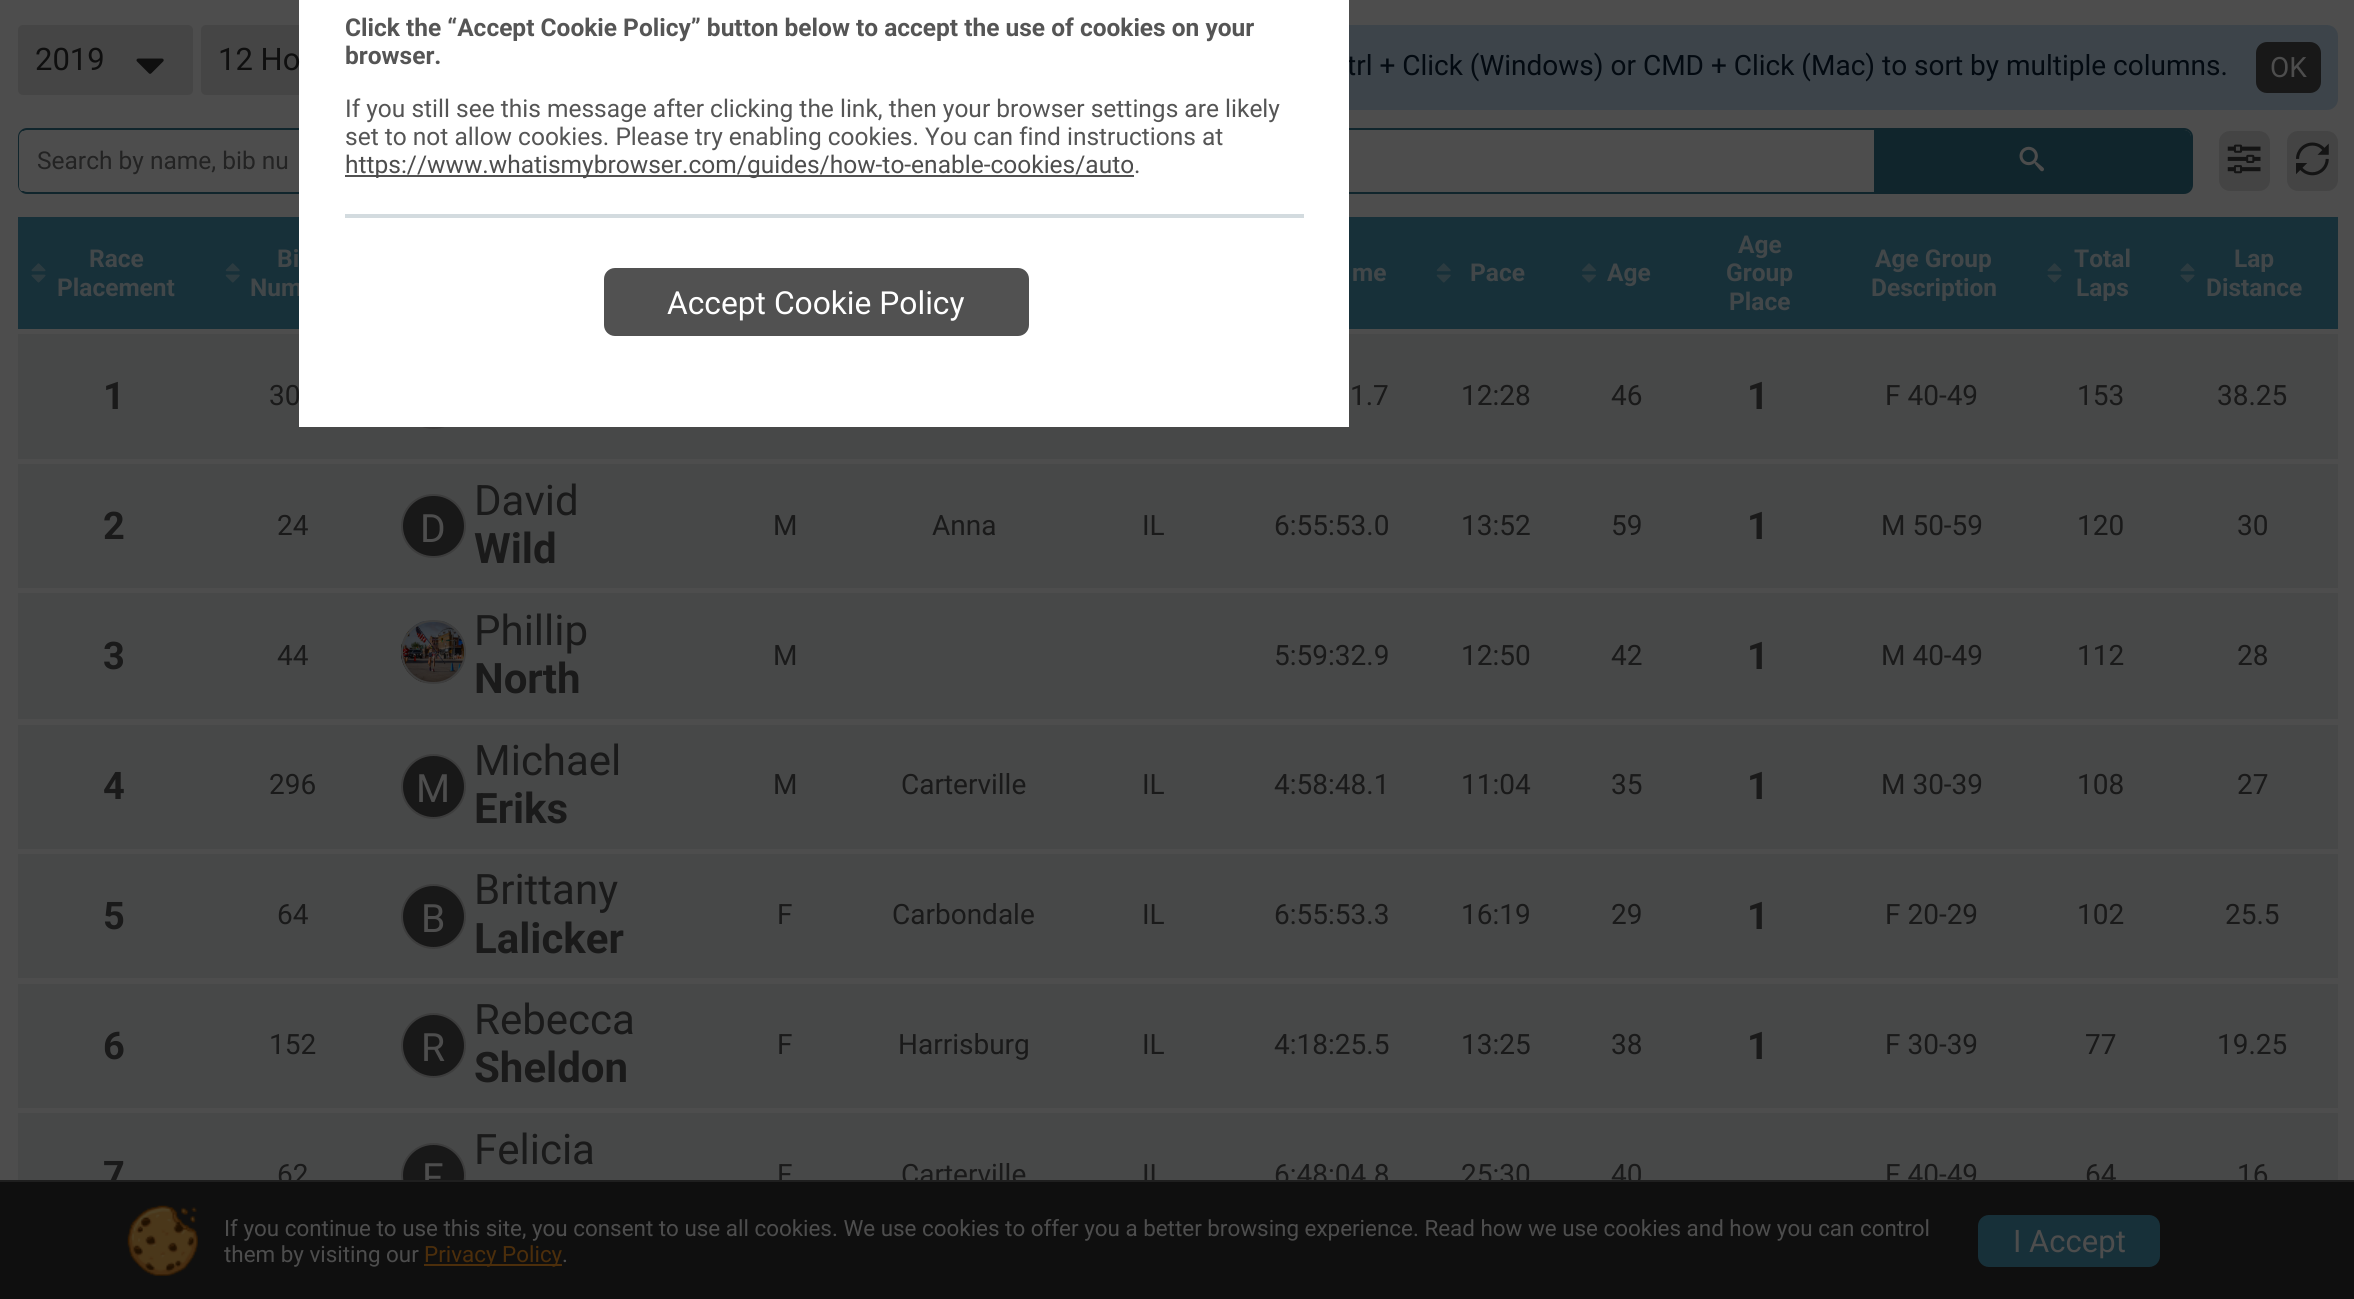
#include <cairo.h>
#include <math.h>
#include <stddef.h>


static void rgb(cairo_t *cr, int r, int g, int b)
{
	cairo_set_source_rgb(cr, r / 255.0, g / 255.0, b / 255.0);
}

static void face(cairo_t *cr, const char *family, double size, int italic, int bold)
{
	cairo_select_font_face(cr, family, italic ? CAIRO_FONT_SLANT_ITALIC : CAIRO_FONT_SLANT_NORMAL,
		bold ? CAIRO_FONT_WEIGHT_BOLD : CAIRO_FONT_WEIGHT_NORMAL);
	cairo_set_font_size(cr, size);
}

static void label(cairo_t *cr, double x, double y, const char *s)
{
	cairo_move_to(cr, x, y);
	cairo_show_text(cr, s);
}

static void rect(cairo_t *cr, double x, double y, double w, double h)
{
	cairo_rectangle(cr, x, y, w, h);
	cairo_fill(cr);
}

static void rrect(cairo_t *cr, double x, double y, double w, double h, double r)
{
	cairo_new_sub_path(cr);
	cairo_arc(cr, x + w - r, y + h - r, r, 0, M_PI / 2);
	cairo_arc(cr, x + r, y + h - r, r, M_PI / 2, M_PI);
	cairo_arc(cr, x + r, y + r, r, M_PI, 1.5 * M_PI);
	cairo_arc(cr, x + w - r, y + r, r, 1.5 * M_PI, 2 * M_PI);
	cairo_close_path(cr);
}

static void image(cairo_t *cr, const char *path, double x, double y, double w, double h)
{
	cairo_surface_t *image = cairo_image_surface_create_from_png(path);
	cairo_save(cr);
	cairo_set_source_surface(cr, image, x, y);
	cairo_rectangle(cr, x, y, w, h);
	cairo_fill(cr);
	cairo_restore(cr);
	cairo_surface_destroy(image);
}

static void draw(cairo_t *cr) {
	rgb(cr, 77, 77, 77);
	cairo_paint(cr);
	rgb(cr, 69, 69, 69);
	rrect(cr, 201, 25, 517, 70, 5);
	cairo_fill(cr);
	rgb(cr, 61, 68, 74);
	rrect(cr, 1257, 25, 1081, 85, 11);
	cairo_fill(cr);
	face(cr, "Roboto", 28, 0, 0);
	rgb(cr, 3, 10, 17);
	label(cr, 1347, 75, "trl + Click (Windows) or CMD + Click (Mac) to sort by multiple columns.");
	rrect(cr, 19, 129, 2173, 64, 8);
	rgb(cr, 16, 37, 44);
	cairo_stroke(cr);
	cairo_save(cr);
	rrect(cr, 19, 130, 2172, 63, 7);
	cairo_clip(cr);
	rgb(cr, 77, 77, 77);
	rect(cr, 19, 131, 1855, 60);
	cairo_restore(cr);
	rgb(cr, 23, 48, 57);
	rect(cr, 18, 217, 2320, 112);
	face(cr, "Roboto", 24.5, 0, 1);
	rgb(cr, 66, 71, 73);
	label(cr, 250, 296, "Num");
	rgb(cr, 71, 72, 72);
	rect(cr, 18, 334, 2320, 125);
	cairo_new_path(cr);
	cairo_arc(cr, 433.5, 396.5, 31.5, 0, 2 * M_PI);
	rgb(cr, 61, 61, 61);
	cairo_stroke(cr);
	cairo_rectangle(cr, 300, -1, 1048, 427);
	rgb(cr, 255, 255, 255);
	cairo_stroke(cr);
	rect(cr, 301, 0, 1046, 425);
	rgb(cr, 85, 85, 85);
	label(cr, 345, 36, "Click the “Accept Cookie Policy” button below to accept the use of cookies on your");
	label(cr, 345, 64, "browser.");
	face(cr, "Roboto", 24.5, 0, 0);
	label(cr, 345, 117, "If you still see this message after clicking the link, then your browser settings are likely");
	label(cr, 345, 145, "set to not allow cookies. Please try enabling cookies. You can find instructions at");
	rgb(cr, 81, 81, 81);
	rect(cr, 345, 175, 789, 2);
	rgb(cr, 77, 77, 77);
	label(cr, 345, 173, "https://www.whatismybrowser.com/guides/how-to-enable-cookies/auto");
	rgb(cr, 85, 85, 85);
	label(cr, 1134, 173, ".");
	rgb(cr, 211, 219, 223);
	rect(cr, 345, 214, 959, 4);
	rgb(cr, 81, 81, 81);
	rrect(cr, 604, 268, 425, 68, 11);
	cairo_fill(cr);
	face(cr, "Roboto", 31.75, 0, 0);
	rgb(cr, 255, 255, 255);
	label(cr, 667, 314, "Accept Cookie Policy");
	rgb(cr, 69, 69, 69);
	rrect(cr, 18, 25, 175, 70, 5);
	cairo_fill(cr);
	face(cr, "Roboto", 31, 0, 0);
	rgb(cr, 15, 15, 15);
	label(cr, 35, 70, "2019");
	image(cr, "image0.png", 136, 58, 28, 16);
	label(cr, 218, 70, "12 Ho");
	rgb(cr, 24, 24, 24);
	rrect(cr, 2256, 42, 65, 51, 11);
	cairo_fill(cr);
	face(cr, "Roboto", 28, 0, 0);
	rgb(cr, 77, 77, 77);
	label(cr, 2270, 77, "OK");
	face(cr, "Roboto", 24.5, 0, 0);
	rgb(cr, 35, 35, 35);
	label(cr, 37, 169, "Search by name, bib nu");
	rgb(cr, 16, 37, 44);
	cairo_new_path(cr);
	cairo_move_to(cr, 1874, 130);
	cairo_line_to(cr, 2184, 130);
	cairo_curve_to(cr, 2188, 130, 2191, 133, 2191, 137);
	cairo_line_to(cr, 2191, 186);
	cairo_curve_to(cr, 2191, 190, 2188, 193, 2184, 193);
	cairo_line_to(cr, 1874, 193);
	cairo_close_path(cr);
	cairo_fill(cr);
	image(cr, "image1.png", 2019, 146, 25, 26);
	rgb(cr, 68, 68, 68);
	rrect(cr, 2219, 131, 51, 60, 11);
	cairo_fill(cr);
	image(cr, "image2.png", 2227, 144, 34, 30);
	rrect(cr, 2287, 131, 51, 60, 11);
	cairo_fill(cr);
	image(cr, "image3.png", 2296, 142, 33, 34);
	face(cr, "Roboto", 24.5, 0, 1);
	rgb(cr, 66, 71, 73);
	label(cr, 89, 267, "Race");
	image(cr, "image4.png", 31, 263, 15, 20);
	label(cr, 57, 296, "Placement");
	label(cr, 277, 267, "Bi");
	image(cr, "image5.png", 225, 263, 15, 20);
	label(cr, 1352, 281, "me");
	image(cr, "image5.png", 1436, 263, 15, 20);
	label(cr, 1470, 281, "Pace");
	image(cr, "image6.png", 1582, 263, 14, 20);
	label(cr, 1607, 281, "Age");
	label(cr, 1738, 253, "Age");
	label(cr, 1726, 281, "Group");
	label(cr, 1729, 310, "Place");
	label(cr, 1875, 267, "Age Group");
	label(cr, 1871, 296, "Description");
	label(cr, 2074, 267, "Total");
	image(cr, "image4.png", 2047, 263, 15, 20);
	label(cr, 2076, 296, "Laps");
	image(cr, "image4.png", 2180, 263, 15, 20);
	label(cr, 2234, 267, "Lap");
	label(cr, 2206, 296, "Distance");
	face(cr, "Roboto", 38, 0, 1);
	rgb(cr, 26, 26, 26);
	label(cr, 103, 409, "1");
	face(cr, "Roboto", 28, 0, 0);
	label(cr, 269, 405, "30");
	label(cr, 1350, 405, "1.7");
	label(cr, 1461, 405, "12:28");
	label(cr, 1611, 405, "46");
	face(cr, "Roboto", 38, 0, 1);
	label(cr, 1747, 409, "1");
	face(cr, "Roboto", 28, 0, 0);
	label(cr, 1885, 405, "F 40-49");
	label(cr, 2077, 405, "153");
	label(cr, 2217, 405, "38.25");
	rgb(cr, 71, 72, 72);
	rect(cr, 18, 464, 2320, 124);
	face(cr, "Roboto", 38, 0, 1);
	rgb(cr, 26, 26, 26);
	label(cr, 103, 539, "2");
	face(cr, "Roboto", 28, 0, 0);
	label(cr, 277, 535, "24");
	rgb(cr, 24, 24, 24);
	rrect(cr, 402, 495, 63, 62, 31);
	cairo_fill_preserve(cr);
	rgb(cr, 61, 61, 61);
	cairo_stroke(cr);
	face(cr, "Roboto", 39, 0, 0);
	rgb(cr, 77, 77, 77);
	label(cr, 420, 542, "D");
	face(cr, "Roboto", 42, 0, 0);
	rgb(cr, 26, 26, 26);
	label(cr, 474, 515, "David");
	face(cr, "Roboto", 42, 0, 1);
	label(cr, 474, 563, "Wild");
	face(cr, "Roboto", 28, 0, 0);
	label(cr, 773, 535, "M");
	label(cr, 932, 535, "Anna");
	label(cr, 1142, 535, "IL");
	label(cr, 1274, 535, "6:55:53.0");
	label(cr, 1461, 535, "13:52");
	label(cr, 1611, 535, "59");
	face(cr, "Roboto", 38, 0, 1);
	label(cr, 1747, 539, "1");
	face(cr, "Roboto", 28, 0, 0);
	label(cr, 1881, 535, "M 50-59");
	label(cr, 2077, 535, "120");
	label(cr, 2237, 535, "30");
	rgb(cr, 71, 72, 72);
	rect(cr, 18, 593, 2320, 126);
	face(cr, "Roboto", 38, 0, 1);
	rgb(cr, 26, 26, 26);
	label(cr, 103, 669, "3");
	face(cr, "Roboto", 28, 0, 0);
	label(cr, 277, 665, "44");
	image(cr, "image7.png", 400, 621, 66, 62);
	rrect(cr, 402, 621, 63, 62, 31);
	rgb(cr, 61, 61, 61);
	cairo_stroke(cr);
	face(cr, "Roboto", 42, 0, 0);
	rgb(cr, 26, 26, 26);
	label(cr, 474, 645, "Phillip");
	face(cr, "Roboto", 42, 0, 1);
	label(cr, 474, 693, "North");
	face(cr, "Roboto", 28, 0, 0);
	label(cr, 773, 665, "M");
	label(cr, 1274, 665, "5:59:32.9");
	label(cr, 1461, 665, "12:50");
	label(cr, 1611, 665, "42");
	face(cr, "Roboto", 38, 0, 1);
	label(cr, 1747, 669, "1");
	face(cr, "Roboto", 28, 0, 0);
	label(cr, 1881, 665, "M 40-49");
	label(cr, 2077, 665, "112");
	label(cr, 2237, 665, "28");
	rgb(cr, 71, 72, 72);
	rect(cr, 18, 725, 2320, 124);
	face(cr, "Roboto", 38, 0, 1);
	rgb(cr, 26, 26, 26);
	label(cr, 103, 799, "4");
	face(cr, "Roboto", 28, 0, 0);
	label(cr, 269, 794, "296");
	rgb(cr, 24, 24, 24);
	cairo_new_path(cr);
	cairo_arc(cr, 433.5, 786.5, 31.5, 0, 2 * M_PI);
	cairo_fill_preserve(cr);
	rgb(cr, 61, 61, 61);
	cairo_stroke(cr);
	face(cr, "Roboto", 39, 0, 0);
	rgb(cr, 77, 77, 77);
	label(cr, 416, 802, "M");
	face(cr, "Roboto", 42, 0, 0);
	rgb(cr, 26, 26, 26);
	label(cr, 474, 775, "Michael");
	face(cr, "Roboto", 42, 0, 1);
	label(cr, 474, 823, "Eriks");
	face(cr, "Roboto", 28, 0, 0);
	label(cr, 773, 794, "M");
	label(cr, 901, 794, "Carterville");
	label(cr, 1142, 794, "IL");
	label(cr, 1274, 794, "4:58:48.1");
	label(cr, 1461, 794, "11:04");
	label(cr, 1611, 794, "35");
	face(cr, "Roboto", 38, 0, 1);
	label(cr, 1747, 799, "1");
	face(cr, "Roboto", 28, 0, 0);
	label(cr, 1881, 794, "M 30-39");
	label(cr, 2077, 794, "108");
	label(cr, 2237, 794, "27");
	rgb(cr, 71, 72, 72);
	rect(cr, 18, 854, 2320, 124);
	face(cr, "Roboto", 38, 0, 1);
	rgb(cr, 26, 26, 26);
	label(cr, 103, 929, "5");
	face(cr, "Roboto", 28, 0, 0);
	label(cr, 277, 924, "64");
	rgb(cr, 24, 24, 24);
	cairo_new_path(cr);
	cairo_arc(cr, 433.5, 916.5, 31.5, 0, 2 * M_PI);
	cairo_fill_preserve(cr);
	rgb(cr, 61, 61, 61);
	cairo_stroke(cr);
	face(cr, "Roboto", 39, 0, 0);
	rgb(cr, 77, 77, 77);
	label(cr, 421, 932, "B");
	face(cr, "Roboto", 42, 0, 0);
	rgb(cr, 26, 26, 26);
	label(cr, 474, 904, "Brittany");
	face(cr, "Roboto", 42, 0, 1);
	label(cr, 474, 953, "Lalicker");
	face(cr, "Roboto", 28, 0, 0);
	label(cr, 777, 924, "F");
	label(cr, 892, 924, "Carbondale");
	label(cr, 1142, 924, "IL");
	label(cr, 1274, 924, "6:55:53.3");
	label(cr, 1461, 924, "16:19");
	label(cr, 1611, 924, "29");
	face(cr, "Roboto", 38, 0, 1);
	label(cr, 1747, 929, "1");
	face(cr, "Roboto", 28, 0, 0);
	label(cr, 1885, 924, "F 20-29");
	label(cr, 2077, 924, "102");
	label(cr, 2225, 924, "25.5");
	rgb(cr, 71, 72, 72);
	rect(cr, 18, 984, 2320, 124);
	face(cr, "Roboto", 38, 0, 1);
	rgb(cr, 26, 26, 26);
	label(cr, 103, 1059, "6");
	face(cr, "Roboto", 28, 0, 0);
	label(cr, 269, 1054, "152");
	rgb(cr, 24, 24, 24);
	cairo_new_path(cr);
	cairo_arc(cr, 433.5, 1045.5, 31.5, 0, 2 * M_PI);
	cairo_fill_preserve(cr);
	rgb(cr, 61, 61, 61);
	cairo_stroke(cr);
	face(cr, "Roboto", 39, 0, 0);
	rgb(cr, 77, 77, 77);
	label(cr, 421, 1061, "R");
	face(cr, "Roboto", 42, 0, 0);
	rgb(cr, 26, 26, 26);
	label(cr, 474, 1034, "Rebecca");
	face(cr, "Roboto", 42, 0, 1);
	label(cr, 474, 1082, "Sheldon");
	face(cr, "Roboto", 28, 0, 0);
	label(cr, 777, 1054, "F");
	label(cr, 898, 1054, "Harrisburg");
	label(cr, 1142, 1054, "IL");
	label(cr, 1274, 1054, "4:18:25.5");
	label(cr, 1461, 1054, "13:25");
	label(cr, 1611, 1054, "38");
	face(cr, "Roboto", 38, 0, 1);
	label(cr, 1747, 1059, "1");
	face(cr, "Roboto", 28, 0, 0);
	label(cr, 1885, 1054, "F 30-39");
	label(cr, 2085, 1054, "77");
	label(cr, 2217, 1054, "19.25");
	rgb(cr, 71, 72, 72);
	rect(cr, 18, 1113, 2320, 67);
	face(cr, "Roboto", 38, 0, 1);
	rgb(cr, 26, 26, 26);
	label(cr, 103, 1188, "7");
	face(cr, "Roboto", 28, 0, 0);
	label(cr, 277, 1184, "62");
	face(cr, "Roboto", 42, 0, 0);
	label(cr, 474, 1164, "Felicia");
	rgb(cr, 24, 24, 24);
	cairo_new_path(cr);
	cairo_arc(cr, 433.5, 1175.5, 31.5, 0, 2 * M_PI);
	cairo_fill_preserve(cr);
	rgb(cr, 61, 61, 61);
	cairo_stroke(cr);
	face(cr, "Roboto", 39, 0, 0);
	rgb(cr, 77, 77, 77);
	label(cr, 422, 1191, "F");
	face(cr, "Roboto", 28, 0, 0);
	rgb(cr, 26, 26, 26);
	label(cr, 777, 1184, "F");
	label(cr, 901, 1184, "Carterville");
	label(cr, 1142, 1184, "IL");
	label(cr, 1274, 1184, "6:48:04.8");
	label(cr, 1461, 1184, "25:30");
	label(cr, 1611, 1184, "40");
	label(cr, 1885, 1184, "F 40-49");
	label(cr, 2085, 1184, "64");
	label(cr, 2237, 1184, "16");
	rgb(cr, 15, 15, 15);
	rect(cr, 0, 1182, 2354, 117);
	rgb(cr, 31, 31, 31);
	rect(cr, 0, 1180, 2354, 2);
	image(cr, "image8.png", 127, 1205, 71, 71);
	face(cr, "Roboto", 22.4, 0, 0);
	rgb(cr, 77, 77, 77);
	label(cr, 224, 1236, "If you continue to use this site, you consent to use all cookies. We use cookies to offer you a better browsing experience. Read how we use cookies and how you can control");
	label(cr, 224, 1262, "them by visiting our");
	rgb(cr, 76, 46, 11);
	rect(cr, 424, 1264, 138, 2);
	label(cr, 424, 1262, "Privacy Policy");
	rgb(cr, 77, 77, 77);
	label(cr, 562, 1262, ".");
	rgb(cr, 23, 48, 57);
	rrect(cr, 1978, 1215, 182, 52, 11);
	cairo_fill(cr);
	face(cr, "Roboto", 31, 0, 0);
	rgb(cr, 77, 77, 77);
	label(cr, 2013, 1252, "I Accept");
}

int main(void) {
	cairo_surface_t *surface = cairo_image_surface_create(CAIRO_FORMAT_RGB24, 2354, 1299);
	cairo_t *cr = cairo_create(surface);
	cairo_font_options_t *options = cairo_font_options_create();
	cairo_font_options_set_hint_metrics(options, CAIRO_HINT_METRICS_OFF);
	cairo_font_options_set_hint_style(options, CAIRO_HINT_STYLE_NONE);
	cairo_set_font_options(cr, options);
	cairo_set_miter_limit(cr, 4);
	draw(cr);
	cairo_surface_write_to_png(surface, "render.png");
	cairo_font_options_destroy(options);
	cairo_destroy(cr);
	cairo_surface_destroy(surface);
	return 0;
}
